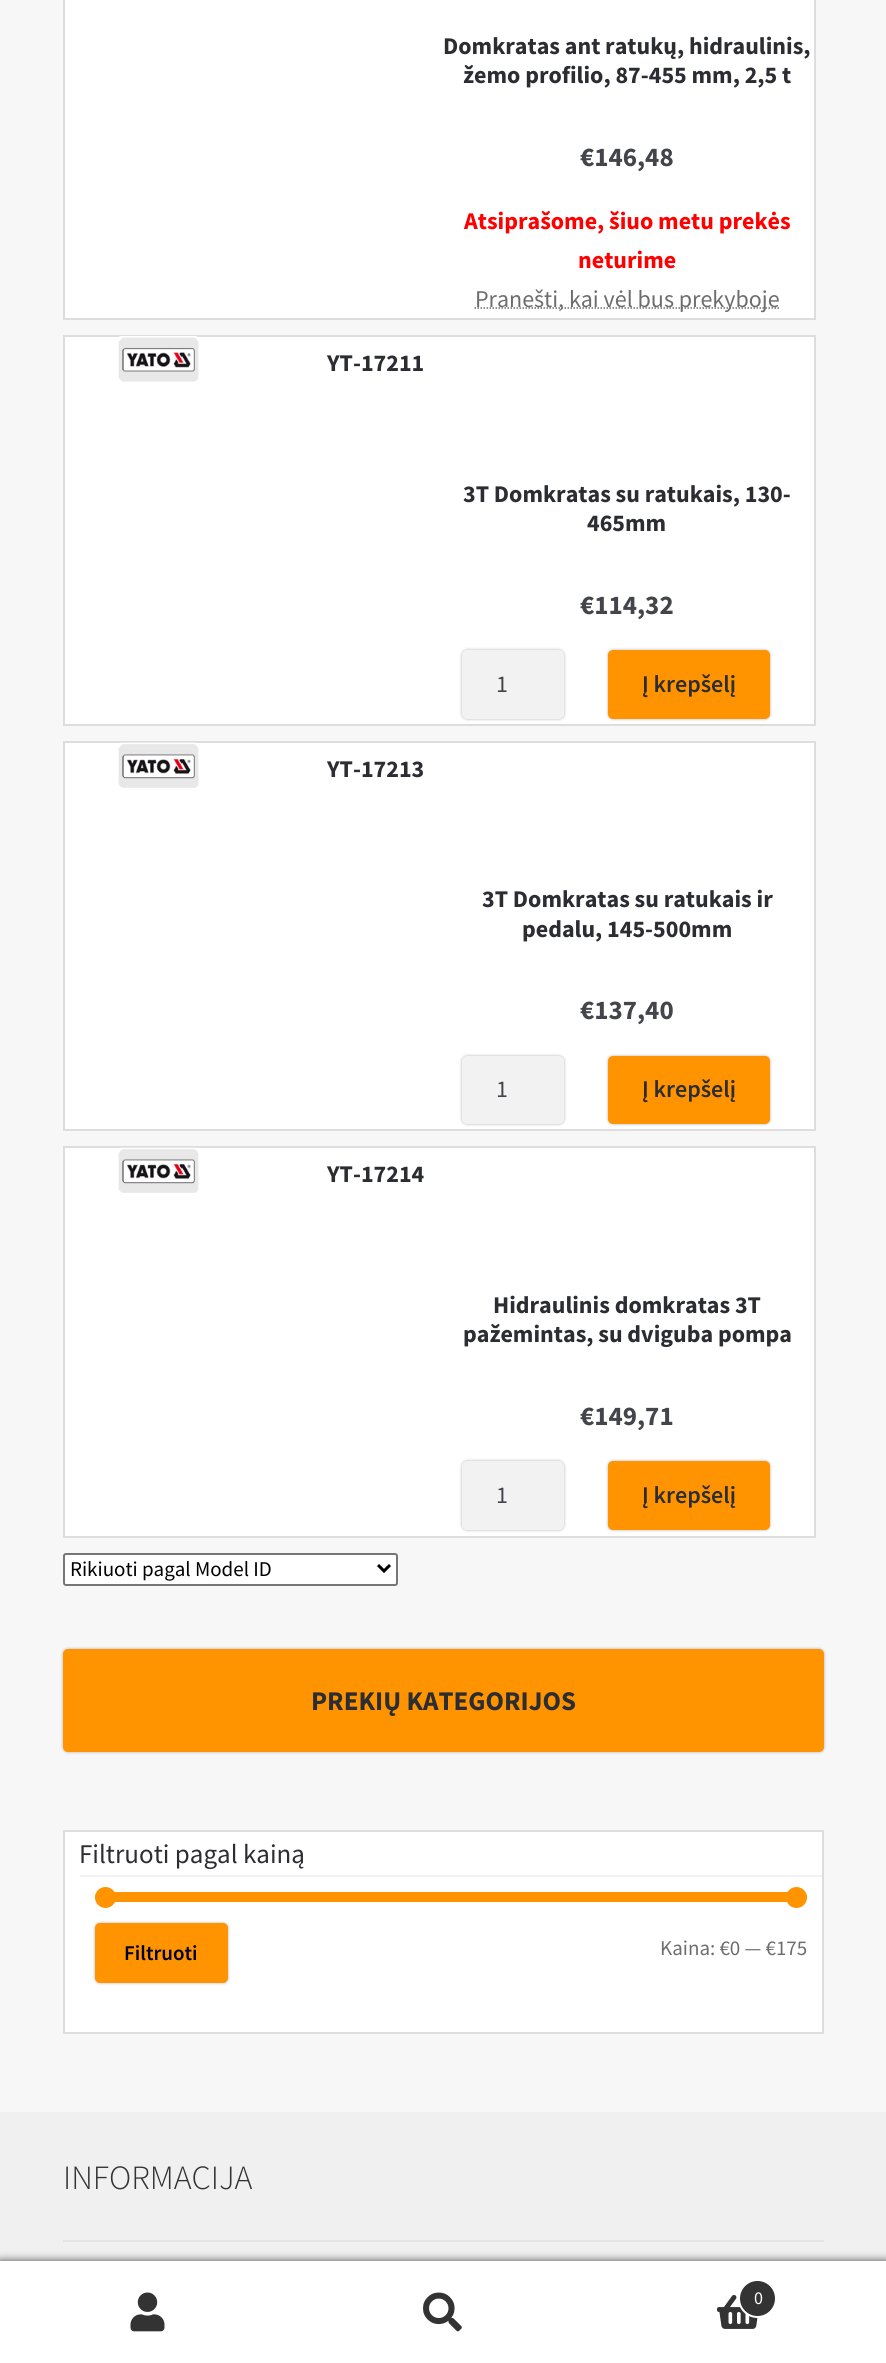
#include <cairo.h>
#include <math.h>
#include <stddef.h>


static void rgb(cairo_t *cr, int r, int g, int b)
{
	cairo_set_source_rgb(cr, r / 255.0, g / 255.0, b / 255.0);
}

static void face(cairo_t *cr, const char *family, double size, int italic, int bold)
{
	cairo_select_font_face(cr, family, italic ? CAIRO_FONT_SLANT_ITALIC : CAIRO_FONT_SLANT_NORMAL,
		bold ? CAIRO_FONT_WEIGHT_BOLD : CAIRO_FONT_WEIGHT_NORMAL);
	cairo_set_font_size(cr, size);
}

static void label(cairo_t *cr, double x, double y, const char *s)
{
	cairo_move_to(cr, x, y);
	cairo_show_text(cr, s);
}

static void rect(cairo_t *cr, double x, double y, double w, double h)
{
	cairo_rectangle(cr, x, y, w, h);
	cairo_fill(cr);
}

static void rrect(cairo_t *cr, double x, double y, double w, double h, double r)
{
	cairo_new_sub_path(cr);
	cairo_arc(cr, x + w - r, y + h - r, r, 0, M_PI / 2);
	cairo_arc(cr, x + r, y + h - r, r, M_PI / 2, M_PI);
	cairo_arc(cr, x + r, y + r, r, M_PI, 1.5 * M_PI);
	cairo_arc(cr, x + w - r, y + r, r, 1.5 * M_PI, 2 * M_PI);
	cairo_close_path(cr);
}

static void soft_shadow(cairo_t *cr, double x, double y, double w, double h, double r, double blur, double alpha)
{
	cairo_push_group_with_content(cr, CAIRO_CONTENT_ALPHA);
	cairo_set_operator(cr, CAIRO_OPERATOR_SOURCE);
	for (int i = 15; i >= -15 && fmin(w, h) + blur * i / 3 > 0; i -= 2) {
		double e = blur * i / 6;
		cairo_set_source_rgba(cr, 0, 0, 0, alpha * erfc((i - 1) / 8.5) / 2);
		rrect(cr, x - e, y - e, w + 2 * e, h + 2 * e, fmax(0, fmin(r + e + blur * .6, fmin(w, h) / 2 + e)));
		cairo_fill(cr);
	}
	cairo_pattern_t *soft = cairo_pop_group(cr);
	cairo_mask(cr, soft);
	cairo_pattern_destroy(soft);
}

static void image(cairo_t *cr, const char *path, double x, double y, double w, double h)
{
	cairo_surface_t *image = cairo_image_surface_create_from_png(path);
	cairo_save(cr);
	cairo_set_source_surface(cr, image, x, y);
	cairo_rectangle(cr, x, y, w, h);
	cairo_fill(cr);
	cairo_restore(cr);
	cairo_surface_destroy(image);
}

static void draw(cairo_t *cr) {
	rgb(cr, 247, 247, 247);
	cairo_paint(cr);
	rgb(cr, 255, 255, 255);
	cairo_rectangle(cr, 64, -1, 751, 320);
	cairo_fill_preserve(cr);
	rgb(cr, 221, 221, 221);
	cairo_stroke(cr);
	face(cr, "Source Sans Pro", 24, 0, 1);
	rgb(cr, 44, 45, 51);
	label(cr, 443, 54, "Domkratas ant ratukų, hidraulinis,");
	label(cr, 463, 83, "žemo profilio, 87-455 mm, 2,5 t");
	face(cr, "Source Sans Pro", 27, 0, 1);
	rgb(cr, 67, 69, 75);
	label(cr, 580, 166, "€146,48");
	face(cr, "Source Sans Pro", 24, 0, 1);
	rgb(cr, 255, 0, 0);
	label(cr, 464, 229, "Atsiprašome, šiuo metu prekės");
	label(cr, 578, 268, "neturime");
	cairo_new_path(cr);
	cairo_move_to(cr, 474.5, 308);
	cairo_line_to(cr, 779, 308);
	rgb(cr, 109, 109, 109);
	cairo_set_line_width(cr, 1.5);
	cairo_set_dash(cr, (double[]){1.5, 1.5}, 2, 0);
	cairo_stroke(cr);
	face(cr, "Source Sans Pro", 24, 0, 0);
	label(cr, 475, 307, "Pranešti, kai vėl bus prekyboje");
	rgb(cr, 255, 255, 255);
	cairo_rectangle(cr, 64, 336, 751, 389);
	cairo_fill_preserve(cr);
	rgb(cr, 221, 221, 221);
	cairo_set_line_width(cr, 2);
	cairo_set_dash(cr, NULL, 0, 0);
	cairo_stroke(cr);
	image(cr, "image0.png", 118, 336, 81, 46);
	face(cr, "Source Sans Pro", 24, 0, 1);
	rgb(cr, 44, 45, 51);
	label(cr, 327, 371, "YT-17211");
	label(cr, 463, 502, "3T Domkratas su ratukais, 130-");
	label(cr, 587, 531, "465mm");
	face(cr, "Source Sans Pro", 27, 0, 1);
	rgb(cr, 67, 69, 75);
	label(cr, 580, 614, "€114,32");
	rgb(cr, 0, 0, 0);
	soft_shadow(cr, 462, 650, 102, 69, 5, 1.5, 0.3);
	rgb(cr, 242, 242, 242);
	rrect(cr, 462, 650, 102, 69, 5);
	cairo_fill(cr);
	face(cr, "Source Sans Pro", 24, 0, 0);
	rgb(cr, 67, 69, 75);
	label(cr, 496, 692, "1");
	rgb(cr, 0, 0, 0);
	soft_shadow(cr, 608, 650, 162, 69, 5, 1.5, 0.3);
	rgb(cr, 255, 147, 0);
	rrect(cr, 608, 650, 162, 69, 5);
	cairo_fill(cr);
	face(cr, "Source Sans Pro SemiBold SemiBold", 24, 0, 0);
	rgb(cr, 44, 45, 51);
	label(cr, 642, 692, "Į krepšelį");
	rgb(cr, 255, 255, 255);
	cairo_rectangle(cr, 64, 742, 751, 388);
	cairo_fill_preserve(cr);
	rgb(cr, 221, 221, 221);
	cairo_stroke(cr);
	image(cr, "image1.png", 118, 742, 81, 46);
	face(cr, "Source Sans Pro", 24, 0, 1);
	rgb(cr, 44, 45, 51);
	label(cr, 327, 777, "YT-17213");
	label(cr, 482, 907, "3T Domkratas su ratukais ir");
	label(cr, 522, 937, "pedalu, 145-500mm");
	face(cr, "Source Sans Pro", 27, 0, 1);
	rgb(cr, 67, 69, 75);
	label(cr, 580, 1019, "€137,40");
	rgb(cr, 0, 0, 0);
	soft_shadow(cr, 462, 1056, 102, 68, 5, 1.5, 0.3);
	rgb(cr, 242, 242, 242);
	rrect(cr, 462, 1056, 102, 68, 5);
	cairo_fill(cr);
	face(cr, "Source Sans Pro", 24, 0, 0);
	rgb(cr, 67, 69, 75);
	label(cr, 496, 1097, "1");
	rgb(cr, 0, 0, 0);
	soft_shadow(cr, 608, 1056, 162, 68, 5, 1.5, 0.3);
	rgb(cr, 255, 147, 0);
	rrect(cr, 608, 1056, 162, 68, 5);
	cairo_fill(cr);
	face(cr, "Source Sans Pro SemiBold SemiBold", 24, 0, 0);
	rgb(cr, 44, 45, 51);
	label(cr, 642, 1097, "Į krepšelį");
	rgb(cr, 255, 255, 255);
	cairo_rectangle(cr, 64, 1147, 751, 390);
	cairo_fill_preserve(cr);
	rgb(cr, 221, 221, 221);
	cairo_stroke(cr);
	image(cr, "image1.png", 118, 1147, 81, 46);
	face(cr, "Source Sans Pro", 24, 0, 1);
	rgb(cr, 44, 45, 51);
	label(cr, 327, 1182, "YT-17214");
	label(cr, 493, 1313, "Hidraulinis domkratas 3T");
	label(cr, 463, 1342, "pažemintas, su dviguba pompa");
	face(cr, "Source Sans Pro", 27, 0, 1);
	rgb(cr, 67, 69, 75);
	label(cr, 580, 1425, "€149,71");
	rgb(cr, 0, 0, 0);
	soft_shadow(cr, 462, 1461, 102, 69, 5, 1.5, 0.3);
	rgb(cr, 242, 242, 242);
	rrect(cr, 462, 1461, 102, 69, 5);
	cairo_fill(cr);
	face(cr, "Source Sans Pro", 24, 0, 0);
	rgb(cr, 67, 69, 75);
	label(cr, 496, 1503, "1");
	rgb(cr, 0, 0, 0);
	soft_shadow(cr, 608, 1461, 162, 69, 5, 1.5, 0.3);
	rgb(cr, 255, 147, 0);
	rrect(cr, 608, 1461, 162, 69, 5);
	cairo_fill(cr);
	face(cr, "Source Sans Pro SemiBold SemiBold", 24, 0, 0);
	rgb(cr, 44, 45, 51);
	label(cr, 642, 1503, "Į krepšelį");
	rgb(cr, 255, 255, 255);
	rrect(cr, 64, 1554, 333, 31, 2);
	cairo_fill_preserve(cr);
	rgb(cr, 118, 118, 118);
	cairo_stroke(cr);
	cairo_new_path(cr);
	cairo_move_to(cr, 378, 1565);
	cairo_line_to(cr, 384, 1571);
	cairo_line_to(cr, 390, 1565);
	rgb(cr, 0, 0, 0);
	cairo_set_line_width(cr, 3);
	cairo_stroke(cr);
	face(cr, "Source Sans Pro", 21, 0, 0);
	label(cr, 70, 1576, "Rikiuoti pagal Model ID");
	rgb(cr, 0, 0, 0);
	soft_shadow(cr, 63, 1649, 761, 103, 5, 1.5, 0.3);
	rgb(cr, 255, 147, 0);
	rrect(cr, 63, 1649, 761, 103, 5);
	cairo_fill(cr);
	face(cr, "Source Sans Pro", 27, 0, 1);
	rgb(cr, 44, 45, 51);
	label(cr, 311, 1710, "PREKIŲ KATEGORIJOS");
	rgb(cr, 255, 255, 255);
	cairo_rectangle(cr, 64, 1831, 759, 202);
	cairo_fill_preserve(cr);
	rgb(cr, 221, 221, 221);
	cairo_set_line_width(cr, 2);
	cairo_stroke(cr);
	rgb(cr, 242, 242, 242);
	rect(cr, 80, 1875, 742, 2);
	face(cr, "Source Sans Pro", 27, 0, 0);
	rgb(cr, 44, 45, 51);
	label(cr, 79, 1863, "Filtruoti pagal kainą");
	rgb(cr, 255, 147, 0);
	rrect(cr, 95, 1892, 712, 10, 5);
	cairo_fill(cr);
	cairo_arc(cr, 105.5, 1897.5, 10.5, 0, 2 * M_PI);
	cairo_fill(cr);
	cairo_arc(cr, 796.5, 1897.5, 10.5, 0, 2 * M_PI);
	cairo_fill(cr);
	rgb(cr, 0, 0, 0);
	soft_shadow(cr, 95, 1923, 133, 60, 5, 1.5, 0.3);
	rgb(cr, 255, 147, 0);
	rrect(cr, 95, 1923, 133, 60, 5);
	cairo_fill(cr);
	face(cr, "Source Sans Pro SemiBold SemiBold", 21, 0, 0);
	rgb(cr, 2, 0, 40);
	label(cr, 124, 1960, "Filtruoti");
	face(cr, "Source Sans Pro", 21, 0, 0);
	rgb(cr, 109, 109, 109);
	label(cr, 660, 1955, "Kaina: €0 — €175");
	rgb(cr, 240, 240, 240);
	rect(cr, 0, 2112, 886, 149);
	rgb(cr, 228, 228, 228);
	rect(cr, 63, 2240, 761, 2);
	face(cr, "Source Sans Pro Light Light", 34, 0, 0);
	rgb(cr, 51, 51, 51);
	label(cr, 63, 2189, "INFORMACIJA");
	rgb(cr, 0, 0, 0);
	soft_shadow(cr, 0, 2261, 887, 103, 0, 4.5, 0.7);
	rgb(cr, 255, 255, 255);
	rect(cr, 0, 2261, 886, 1);
	rect(cr, 0, 2262, 886, 101);
	image(cr, "image2.png", 130, 2292, 35, 40);
	image(cr, "image3.png", 423, 2292, 39, 40);
	image(cr, "image4.png", 717, 2294, 41, 35);
	rgb(cr, 51, 51, 51);
	cairo_arc(cr, 757.5, 2298.5, 18.5, 0, 2 * M_PI);
	cairo_fill_preserve(cr);
	rgb(cr, 255, 255, 255);
	cairo_stroke(cr);
	face(cr, "Source Sans Pro", 18, 0, 0);
	label(cr, 754, 2304, "0");
}

int main(void) {
	cairo_surface_t *surface = cairo_image_surface_create(CAIRO_FORMAT_RGB24, 886, 2363);
	cairo_t *cr = cairo_create(surface);
	cairo_font_options_t *options = cairo_font_options_create();
	cairo_font_options_set_hint_metrics(options, CAIRO_HINT_METRICS_OFF);
	cairo_font_options_set_hint_style(options, CAIRO_HINT_STYLE_NONE);
	cairo_set_font_options(cr, options);
	cairo_set_miter_limit(cr, 4);
	draw(cr);
	cairo_surface_write_to_png(surface, "render.png");
	cairo_font_options_destroy(options);
	cairo_destroy(cr);
	cairo_surface_destroy(surface);
	return 0;
}
